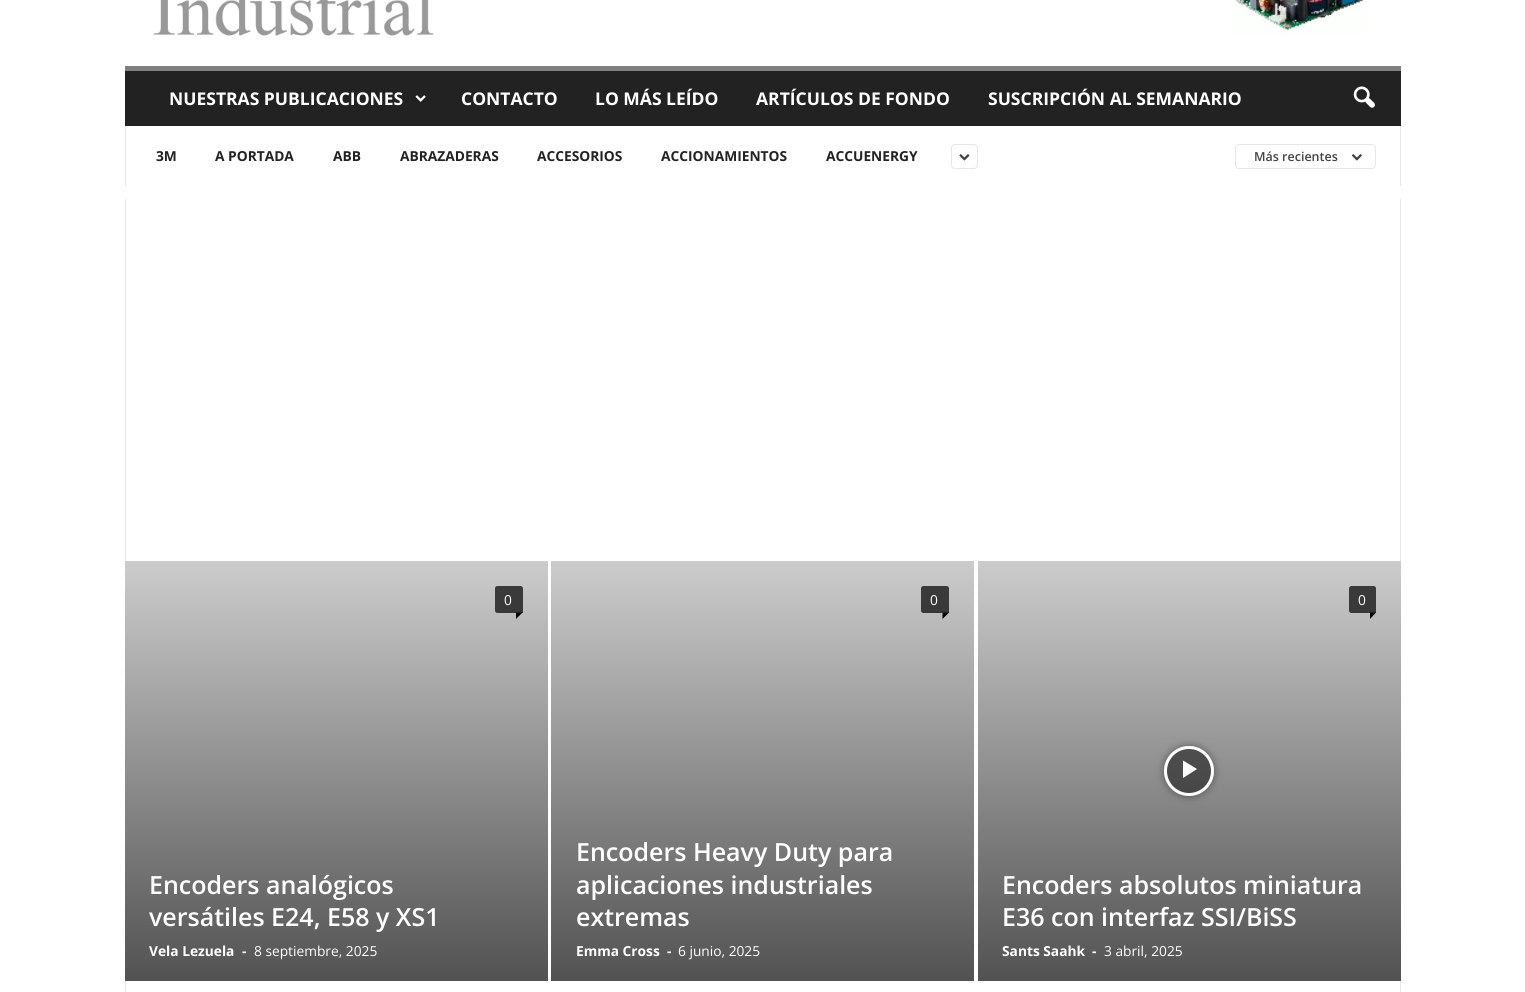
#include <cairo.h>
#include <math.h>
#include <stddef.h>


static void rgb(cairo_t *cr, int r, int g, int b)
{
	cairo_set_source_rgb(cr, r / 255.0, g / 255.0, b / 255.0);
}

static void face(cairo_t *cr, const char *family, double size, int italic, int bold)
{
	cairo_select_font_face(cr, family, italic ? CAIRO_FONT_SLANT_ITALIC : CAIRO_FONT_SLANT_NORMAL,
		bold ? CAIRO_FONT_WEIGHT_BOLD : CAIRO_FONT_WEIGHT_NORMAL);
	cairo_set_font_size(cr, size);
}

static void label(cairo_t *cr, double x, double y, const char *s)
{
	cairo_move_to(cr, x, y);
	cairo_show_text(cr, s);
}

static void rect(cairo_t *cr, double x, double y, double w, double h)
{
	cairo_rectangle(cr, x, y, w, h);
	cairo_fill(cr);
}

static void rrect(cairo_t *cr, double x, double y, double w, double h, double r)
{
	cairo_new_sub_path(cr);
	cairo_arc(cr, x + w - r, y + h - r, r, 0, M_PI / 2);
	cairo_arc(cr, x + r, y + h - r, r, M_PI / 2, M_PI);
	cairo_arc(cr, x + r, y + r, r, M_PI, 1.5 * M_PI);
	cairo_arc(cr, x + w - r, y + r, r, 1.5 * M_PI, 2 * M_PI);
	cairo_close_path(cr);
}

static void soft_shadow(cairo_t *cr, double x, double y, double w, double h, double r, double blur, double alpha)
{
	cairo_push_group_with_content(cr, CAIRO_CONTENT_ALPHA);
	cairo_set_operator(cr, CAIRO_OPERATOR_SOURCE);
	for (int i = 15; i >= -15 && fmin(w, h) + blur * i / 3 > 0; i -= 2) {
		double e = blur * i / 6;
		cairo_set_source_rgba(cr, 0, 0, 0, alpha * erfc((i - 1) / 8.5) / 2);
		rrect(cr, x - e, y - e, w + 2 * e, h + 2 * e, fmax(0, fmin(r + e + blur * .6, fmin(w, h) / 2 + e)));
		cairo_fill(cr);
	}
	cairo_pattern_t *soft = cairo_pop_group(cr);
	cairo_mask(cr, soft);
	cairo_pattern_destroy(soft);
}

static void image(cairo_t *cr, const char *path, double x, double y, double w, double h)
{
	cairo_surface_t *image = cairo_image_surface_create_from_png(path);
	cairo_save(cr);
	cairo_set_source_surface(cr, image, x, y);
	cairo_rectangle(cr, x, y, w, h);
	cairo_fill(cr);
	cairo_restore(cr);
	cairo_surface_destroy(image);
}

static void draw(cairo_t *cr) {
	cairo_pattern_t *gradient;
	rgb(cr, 255, 255, 255);
	cairo_paint(cr);
	image(cr, "image0.png", 153, 0, 281, 36);
	image(cr, "image1.png", 1231, 0, 132, 37);
	rgb(cr, 34, 34, 34);
	rect(cr, 125, 71, 1276, 55);
	rgb(cr, 128, 128, 128);
	rect(cr, 125, 66, 1276, 5);
	face(cr, "Open Sans", 17.5, 0, 1);
	rgb(cr, 255, 255, 255);
	label(cr, 169, 105, "NUESTRAS PUBLICACIONES");
	image(cr, "image2.png", 415, 95, 11, 7);
	label(cr, 461, 105, "CONTACTO");
	label(cr, 595, 105, "LO MÁS LEÍDO");
	label(cr, 756, 105, "ARTÍCULOS DE FONDO");
	label(cr, 988, 105, "SUSCRIPCIÓN AL SEMANARIO");
	image(cr, "image3.png", 1353, 86, 22, 22);
	rgb(cr, 230, 230, 230);
	rect(cr, 125, 126, 1, 60);
	face(cr, "Open Sans", 13.75, 0, 1);
	rgb(cr, 34, 34, 34);
	label(cr, 156, 161, "3M");
	label(cr, 215, 161, "A PORTADA");
	label(cr, 333, 161, "ABB");
	label(cr, 400, 161, "ABRAZADERAS");
	label(cr, 537, 161, "ACCESORIOS");
	label(cr, 661, 161, "ACCIONAMIENTOS");
	label(cr, 826, 161, "ACCUENERGY");
	rrect(cr, 951.5, 144.5, 26, 24, 3.5);
	rgb(cr, 230, 230, 230);
	cairo_set_line_width(cr, 1);
	cairo_stroke(cr);
	image(cr, "image4.png", 959, 154, 11, 7);
	rrect(cr, 1235.5, 144.5, 140, 24, 3.5);
	cairo_stroke(cr);
	face(cr, "Open Sans SemiBold", 12.5, 0, 0);
	rgb(cr, 68, 68, 68);
	label(cr, 1254, 161, "Más recientes");
	image(cr, "image5.png", 1351, 154, 11, 7);
	rgb(cr, 230, 230, 230);
	rect(cr, 1400, 126, 1, 60);
	rect(cr, 125, 199, 1, 793);
	gradient = cairo_pattern_create_linear(336, 561, 336, 981);
	cairo_pattern_add_color_stop_rgba(gradient, 0, 0.8, 0.8, 0.8, 1);
	cairo_pattern_add_color_stop_rgba(gradient, 1, 0.322, 0.322, 0.322, 1);
	cairo_set_source(cr, gradient);
	cairo_pattern_destroy(gradient);
	rect(cr, 125, 561, 423, 420);
	cairo_set_source_rgba(cr, 0, 0, 0, 0.7);
	cairo_new_path(cr);
	cairo_move_to(cr, 497.5, 586);
	cairo_line_to(cr, 520.5, 586);
	cairo_curve_to(cr, 522, 586, 523, 587, 523, 588.5);
	cairo_line_to(cr, 523, 613);
	cairo_line_to(cr, 497.5, 613);
	cairo_curve_to(cr, 496, 613, 495, 612, 495, 610.5);
	cairo_line_to(cr, 495, 588.5);
	cairo_curve_to(cr, 495, 587, 496, 586, 497.5, 586);
	cairo_close_path(cr);
	cairo_fill(cr);
	face(cr, "Open Sans", 13.75, 0, 0);
	rgb(cr, 255, 255, 255);
	label(cr, 504, 605, "0");
	rgb(cr, 0, 0, 0);
	cairo_new_path(cr);
	cairo_move_to(cr, 516, 612.5);
	cairo_line_to(cr, 522.5, 612.5);
	cairo_line_to(cr, 516, 619);
	cairo_close_path(cr);
	cairo_fill(cr);
	face(cr, "Open Sans SemiBold", 25, 0, 0);
	rgb(cr, 255, 255, 255);
	label(cr, 149, 894, "Encoders analógicos");
	label(cr, 149, 926, "versátiles E24, E58 y XS1");
	face(cr, "Open Sans", 13.75, 0, 1);
	label(cr, 149, 956, "Vela Lezuela");
	label(cr, 242, 956, "-");
	face(cr, "Open Sans", 13.75, 0, 0);
	label(cr, 254, 956, "8 septiembre, 2025");
	gradient = cairo_pattern_create_linear(763, 561, 763, 981);
	cairo_pattern_add_color_stop_rgba(gradient, 0, 0.8, 0.8, 0.8, 1);
	cairo_pattern_add_color_stop_rgba(gradient, 1, 0.322, 0.322, 0.322, 1);
	cairo_set_source(cr, gradient);
	cairo_pattern_destroy(gradient);
	rect(cr, 551, 561, 423, 420);
	cairo_set_source_rgba(cr, 0, 0, 0, 0.7);
	cairo_new_path(cr);
	cairo_move_to(cr, 923.5, 586);
	cairo_line_to(cr, 946.5, 586);
	cairo_curve_to(cr, 948, 586, 949, 587, 949, 588.5);
	cairo_line_to(cr, 949, 613);
	cairo_line_to(cr, 923.5, 613);
	cairo_curve_to(cr, 922, 613, 921, 612, 921, 610.5);
	cairo_line_to(cr, 921, 588.5);
	cairo_curve_to(cr, 921, 587, 922, 586, 923.5, 586);
	cairo_close_path(cr);
	cairo_fill(cr);
	rgb(cr, 255, 255, 255);
	label(cr, 930, 605, "0");
	rgb(cr, 0, 0, 0);
	cairo_new_path(cr);
	cairo_move_to(cr, 942.5, 612.5);
	cairo_line_to(cr, 949, 612.5);
	cairo_line_to(cr, 942.5, 619);
	cairo_close_path(cr);
	cairo_fill(cr);
	face(cr, "Open Sans SemiBold", 25, 0, 0);
	rgb(cr, 255, 255, 255);
	label(cr, 576, 861, "Encoders Heavy Duty para");
	label(cr, 576, 894, "aplicaciones industriales");
	label(cr, 576, 926, "extremas");
	face(cr, "Open Sans", 13.75, 0, 1);
	label(cr, 576, 956, "Emma Cross");
	label(cr, 667, 956, "-");
	face(cr, "Open Sans", 13.75, 0, 0);
	label(cr, 678, 956, "6 junio, 2025");
	rgb(cr, 230, 230, 230);
	rect(cr, 1400, 199, 1, 793);
	gradient = cairo_pattern_create_linear(1189, 561, 1189, 981);
	cairo_pattern_add_color_stop_rgba(gradient, 0, 0.8, 0.8, 0.8, 1);
	cairo_pattern_add_color_stop_rgba(gradient, 1, 0.322, 0.322, 0.322, 1);
	cairo_set_source(cr, gradient);
	cairo_pattern_destroy(gradient);
	rect(cr, 978, 561, 423, 420);
	cairo_save(cr);
	cairo_set_fill_rule(cr, CAIRO_FILL_RULE_EVEN_ODD);
	cairo_new_path(cr);
	cairo_move_to(cr, 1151, 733);
	cairo_line_to(cr, 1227, 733);
	cairo_line_to(cr, 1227, 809);
	cairo_line_to(cr, 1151, 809);
	cairo_close_path(cr);
	cairo_move_to(cr, 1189, 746);
	cairo_curve_to(cr, 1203, 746, 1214, 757, 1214, 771);
	cairo_curve_to(cr, 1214, 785, 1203, 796, 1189, 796);
	cairo_curve_to(cr, 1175, 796, 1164, 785, 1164, 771);
	cairo_curve_to(cr, 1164, 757, 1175, 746, 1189, 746);
	cairo_close_path(cr);
	cairo_clip(cr);
	rgb(cr, 0, 0, 0);
	soft_shadow(cr, 1164, 746, 50, 50, 25, 4, 0.4);
	cairo_restore(cr);
	cairo_set_source_rgba(cr, 0, 0, 0, 0.48);
	cairo_arc(cr, 1189, 771, 23.5, 0, 2 * M_PI);
	cairo_fill_preserve(cr);
	rgb(cr, 255, 255, 255);
	cairo_set_line_width(cr, 3);
	cairo_stroke(cr);
	cairo_new_path(cr);
	cairo_move_to(cr, 1183, 760.5);
	cairo_line_to(cr, 1183, 778);
	cairo_line_to(cr, 1197, 769);
	cairo_close_path(cr);
	cairo_fill(cr);
	cairo_set_source_rgba(cr, 0, 0, 0, 0.7);
	cairo_new_path(cr);
	cairo_move_to(cr, 1351.5, 586);
	cairo_line_to(cr, 1373.5, 586);
	cairo_curve_to(cr, 1375, 586, 1376, 587, 1376, 588.5);
	cairo_line_to(cr, 1376, 613);
	cairo_line_to(cr, 1351.5, 613);
	cairo_curve_to(cr, 1350, 613, 1349, 612, 1349, 610.5);
	cairo_line_to(cr, 1349, 588.5);
	cairo_curve_to(cr, 1349, 587, 1350, 586, 1351.5, 586);
	cairo_close_path(cr);
	cairo_fill(cr);
	rgb(cr, 255, 255, 255);
	label(cr, 1358, 605, "0");
	rgb(cr, 0, 0, 0);
	cairo_new_path(cr);
	cairo_move_to(cr, 1370, 612.5);
	cairo_line_to(cr, 1376, 612.5);
	cairo_line_to(cr, 1370, 619);
	cairo_close_path(cr);
	cairo_fill(cr);
	face(cr, "Open Sans SemiBold", 25, 0, 0);
	rgb(cr, 255, 255, 255);
	label(cr, 1002, 894, "Encoders absolutos miniatura");
	label(cr, 1002, 926, "E36 con interfaz SSI/BiSS");
	face(cr, "Open Sans", 13.75, 0, 1);
	label(cr, 1002, 956, "Sants Saahk");
	label(cr, 1092, 956, "-");
	face(cr, "Open Sans", 13.75, 0, 0);
	label(cr, 1104, 956, "3 abril, 2025");
}

int main(void) {
	cairo_surface_t *surface = cairo_image_surface_create(CAIRO_FORMAT_RGB24, 1525, 992);
	cairo_t *cr = cairo_create(surface);
	cairo_font_options_t *options = cairo_font_options_create();
	cairo_font_options_set_hint_metrics(options, CAIRO_HINT_METRICS_OFF);
	cairo_font_options_set_hint_style(options, CAIRO_HINT_STYLE_NONE);
	cairo_set_font_options(cr, options);
	cairo_set_miter_limit(cr, 4);
	draw(cr);
	cairo_surface_write_to_png(surface, "render.png");
	cairo_font_options_destroy(options);
	cairo_destroy(cr);
	cairo_surface_destroy(surface);
	return 0;
}
